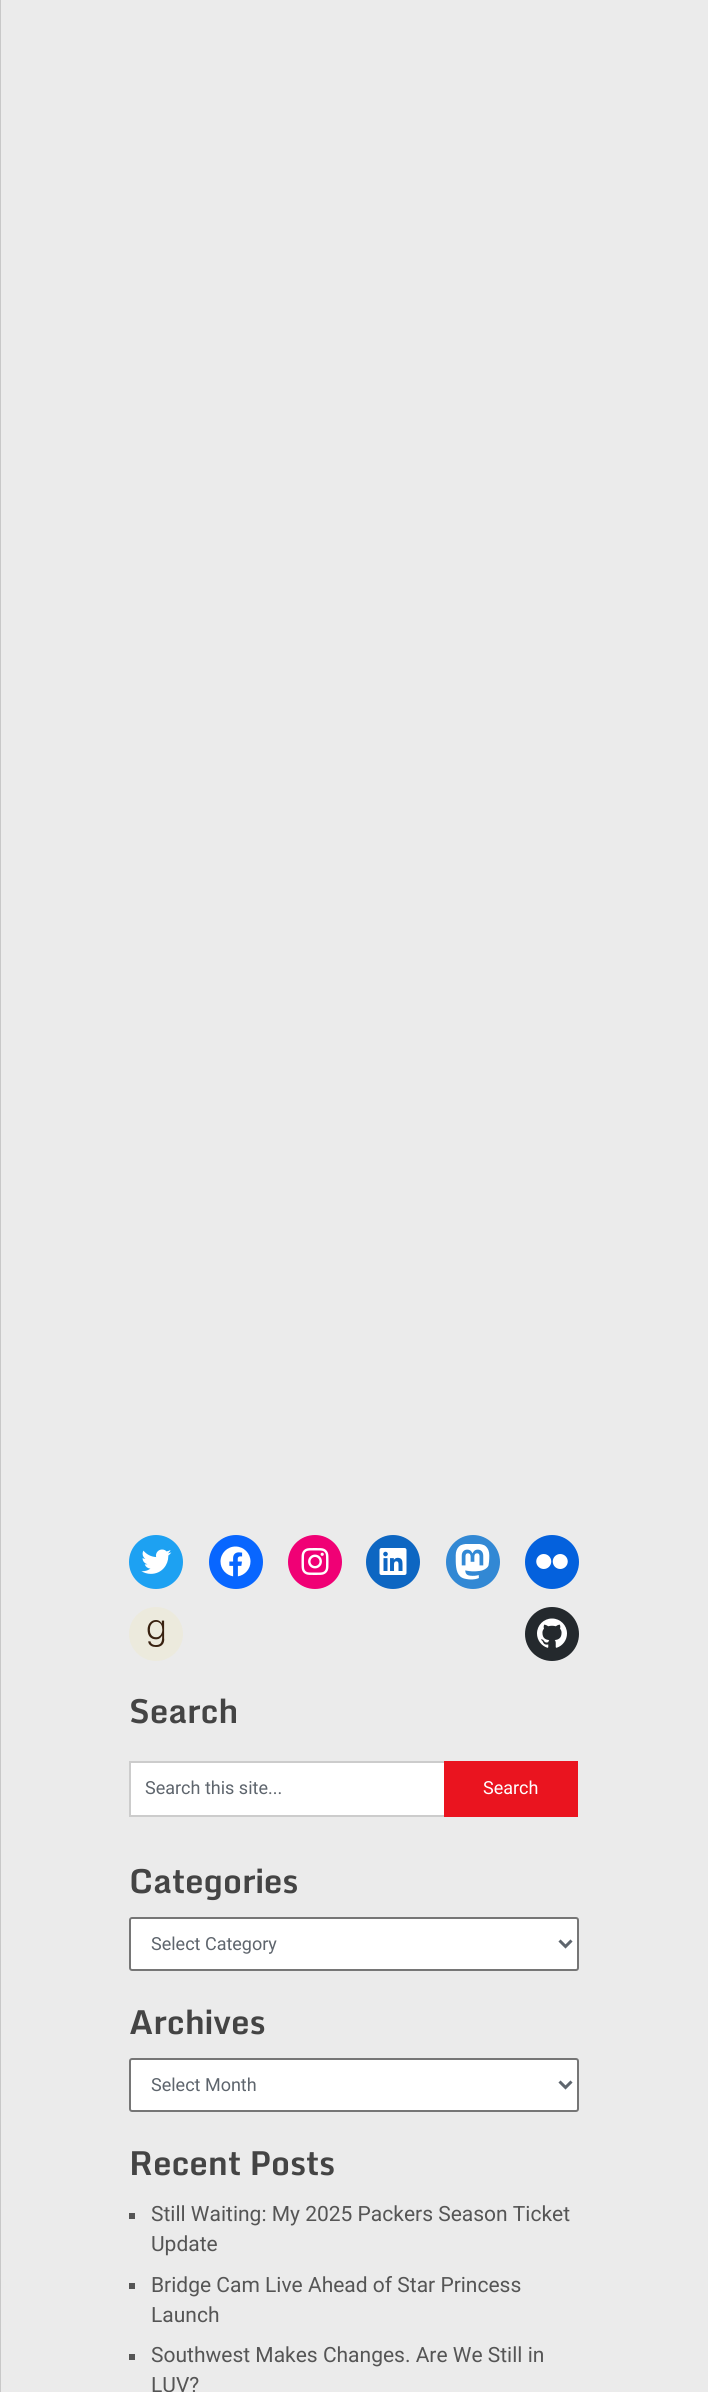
#include <cairo.h>
#include <math.h>
#include <stddef.h>


static void rgb(cairo_t *cr, int r, int g, int b)
{
	cairo_set_source_rgb(cr, r / 255.0, g / 255.0, b / 255.0);
}

static void face(cairo_t *cr, const char *family, double size, int italic, int bold)
{
	cairo_select_font_face(cr, family, italic ? CAIRO_FONT_SLANT_ITALIC : CAIRO_FONT_SLANT_NORMAL,
		bold ? CAIRO_FONT_WEIGHT_BOLD : CAIRO_FONT_WEIGHT_NORMAL);
	cairo_set_font_size(cr, size);
}

static void label(cairo_t *cr, double x, double y, const char *s)
{
	cairo_move_to(cr, x, y);
	cairo_show_text(cr, s);
}

static void rect(cairo_t *cr, double x, double y, double w, double h)
{
	cairo_rectangle(cr, x, y, w, h);
	cairo_fill(cr);
}

static void rrect(cairo_t *cr, double x, double y, double w, double h, double r)
{
	cairo_new_sub_path(cr);
	cairo_arc(cr, x + w - r, y + h - r, r, 0, M_PI / 2);
	cairo_arc(cr, x + r, y + h - r, r, M_PI / 2, M_PI);
	cairo_arc(cr, x + r, y + r, r, M_PI, 1.5 * M_PI);
	cairo_arc(cr, x + w - r, y + r, r, 1.5 * M_PI, 2 * M_PI);
	cairo_close_path(cr);
}

static void image(cairo_t *cr, const char *path, double x, double y, double w, double h)
{
	cairo_surface_t *image = cairo_image_surface_create_from_png(path);
	cairo_save(cr);
	cairo_set_source_surface(cr, image, x, y);
	cairo_rectangle(cr, x, y, w, h);
	cairo_fill(cr);
	cairo_restore(cr);
	cairo_surface_destroy(image);
}

static void draw(cairo_t *cr) {
	rgb(cr, 235, 235, 235);
	cairo_paint(cr);
	rgb(cr, 200, 200, 200);
	rect(cr, 0, 0, 1, 2392);
	rgb(cr, 29, 161, 242);
	cairo_arc(cr, 156, 1562, 27, 0, 2 * M_PI);
	cairo_fill(cr);
	image(cr, "image0.png", 141, 1549, 31, 25);
	rgb(cr, 8, 102, 255);
	cairo_arc(cr, 236, 1562, 27, 0, 2 * M_PI);
	cairo_fill(cr);
	image(cr, "image1.png", 220, 1546, 31, 31);
	rgb(cr, 240, 0, 117);
	cairo_arc(cr, 315, 1562, 27, 0, 2 * M_PI);
	cairo_fill(cr);
	image(cr, "image2.png", 301, 1548, 28, 27);
	rgb(cr, 13, 102, 194);
	cairo_arc(cr, 393, 1562, 27, 0, 2 * M_PI);
	cairo_fill(cr);
	image(cr, "image3.png", 379, 1548, 28, 27);
	rgb(cr, 50, 136, 212);
	cairo_arc(cr, 473, 1562, 27, 0, 2 * M_PI);
	cairo_fill(cr);
	image(cr, "image4.png", 455, 1544, 35, 36);
	rgb(cr, 4, 97, 221);
	cairo_arc(cr, 552, 1562, 27, 0, 2 * M_PI);
	cairo_fill(cr);
	image(cr, "image5.png", 536, 1554, 32, 15);
	rgb(cr, 236, 234, 221);
	cairo_arc(cr, 156, 1634, 27, 0, 2 * M_PI);
	cairo_fill(cr);
	image(cr, "image6.png", 147, 1620, 18, 27);
	rgb(cr, 36, 41, 45);
	cairo_arc(cr, 552, 1634, 27, 0, 2 * M_PI);
	cairo_fill(cr);
	image(cr, "image7.png", 537, 1618, 30, 30);
	face(cr, "Monda", 33, 0, 1);
	rgb(cr, 68, 68, 68);
	label(cr, 129, 1723, "Search");
	rgb(cr, 255, 255, 255);
	rect(cr, 131, 1763, 313, 52);
	rgb(cr, 204, 204, 204);
	rect(cr, 129, 1761, 315, 2);
	rect(cr, 129, 1815, 315, 2);
	rect(cr, 129, 1761, 2, 56);
	face(cr, "Roboto", 18, 0, 0);
	rgb(cr, 94, 101, 109);
	label(cr, 145, 1794, "Search this site...");
	rgb(cr, 234, 20, 31);
	rect(cr, 444, 1761, 134, 56);
	rgb(cr, 255, 255, 255);
	label(cr, 483, 1794, "Search");
	face(cr, "Monda", 33, 0, 1);
	rgb(cr, 68, 68, 68);
	label(cr, 129, 1893, "Categories");
	rgb(cr, 255, 255, 255);
	rrect(cr, 130, 1918, 448, 52, 2);
	cairo_fill_preserve(cr);
	rgb(cr, 118, 118, 118);
	cairo_stroke(cr);
	cairo_new_path(cr);
	cairo_move_to(cr, 559.5, 1940.5);
	cairo_line_to(cr, 565.5, 1946.5);
	cairo_line_to(cr, 571.5, 1940.5);
	rgb(cr, 94, 101, 109);
	cairo_set_line_width(cr, 3);
	cairo_stroke(cr);
	face(cr, "Roboto", 18, 0, 0);
	label(cr, 151, 1950, "Select Category");
	face(cr, "Monda", 33, 0, 1);
	rgb(cr, 68, 68, 68);
	label(cr, 129, 2034, "Archives");
	rgb(cr, 255, 255, 255);
	rrect(cr, 130, 2059, 448, 52, 2);
	cairo_fill_preserve(cr);
	rgb(cr, 118, 118, 118);
	cairo_set_line_width(cr, 2);
	cairo_stroke(cr);
	cairo_new_path(cr);
	cairo_move_to(cr, 559.5, 2081.5);
	cairo_line_to(cr, 565.5, 2087.5);
	cairo_line_to(cr, 571.5, 2081.5);
	rgb(cr, 94, 101, 109);
	cairo_set_line_width(cr, 3);
	cairo_stroke(cr);
	face(cr, "Roboto", 18, 0, 0);
	label(cr, 151, 2091, "Select Month");
	face(cr, "Monda", 33, 0, 1);
	rgb(cr, 68, 68, 68);
	label(cr, 129, 2175, "Recent Posts");
	rgb(cr, 85, 85, 85);
	rect(cr, 129, 2213, 6, 6);
	face(cr, "Roboto", 21, 0, 0);
	label(cr, 151, 2221, "Still Waiting: My 2025 Packers Season Ticket");
	label(cr, 151, 2251, "Update");
	rect(cr, 129, 2283, 6, 6);
	label(cr, 151, 2292, "Bridge Cam Live Ahead of Star Princess");
	label(cr, 151, 2322, "Launch");
	rect(cr, 129, 2354, 6, 6);
	label(cr, 151, 2362, "Southwest Makes Changes. Are We Still in");
	label(cr, 151, 2392, "LUV?");
}

int main(void) {
	cairo_surface_t *surface = cairo_image_surface_create(CAIRO_FORMAT_RGB24, 708, 2392);
	cairo_t *cr = cairo_create(surface);
	cairo_font_options_t *options = cairo_font_options_create();
	cairo_font_options_set_hint_metrics(options, CAIRO_HINT_METRICS_OFF);
	cairo_font_options_set_hint_style(options, CAIRO_HINT_STYLE_NONE);
	cairo_set_font_options(cr, options);
	cairo_set_miter_limit(cr, 4);
	draw(cr);
	cairo_surface_write_to_png(surface, "render.png");
	cairo_font_options_destroy(options);
	cairo_destroy(cr);
	cairo_surface_destroy(surface);
	return 0;
}
